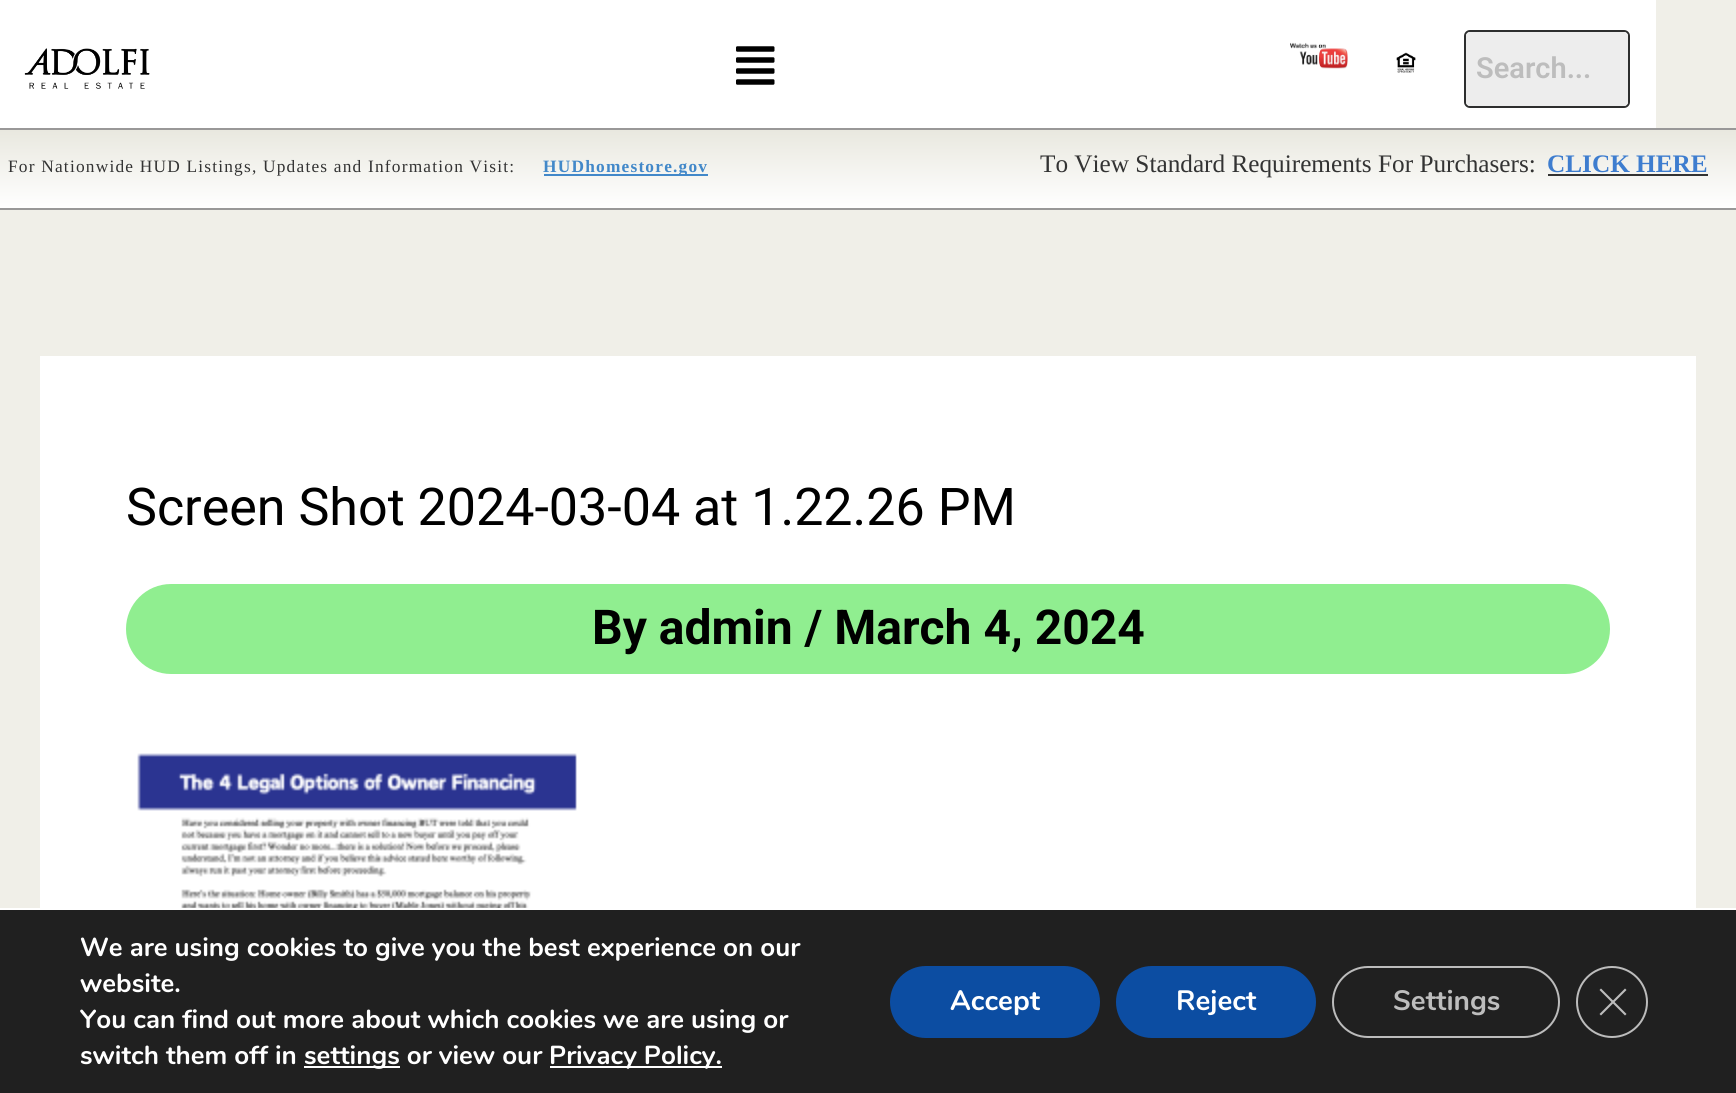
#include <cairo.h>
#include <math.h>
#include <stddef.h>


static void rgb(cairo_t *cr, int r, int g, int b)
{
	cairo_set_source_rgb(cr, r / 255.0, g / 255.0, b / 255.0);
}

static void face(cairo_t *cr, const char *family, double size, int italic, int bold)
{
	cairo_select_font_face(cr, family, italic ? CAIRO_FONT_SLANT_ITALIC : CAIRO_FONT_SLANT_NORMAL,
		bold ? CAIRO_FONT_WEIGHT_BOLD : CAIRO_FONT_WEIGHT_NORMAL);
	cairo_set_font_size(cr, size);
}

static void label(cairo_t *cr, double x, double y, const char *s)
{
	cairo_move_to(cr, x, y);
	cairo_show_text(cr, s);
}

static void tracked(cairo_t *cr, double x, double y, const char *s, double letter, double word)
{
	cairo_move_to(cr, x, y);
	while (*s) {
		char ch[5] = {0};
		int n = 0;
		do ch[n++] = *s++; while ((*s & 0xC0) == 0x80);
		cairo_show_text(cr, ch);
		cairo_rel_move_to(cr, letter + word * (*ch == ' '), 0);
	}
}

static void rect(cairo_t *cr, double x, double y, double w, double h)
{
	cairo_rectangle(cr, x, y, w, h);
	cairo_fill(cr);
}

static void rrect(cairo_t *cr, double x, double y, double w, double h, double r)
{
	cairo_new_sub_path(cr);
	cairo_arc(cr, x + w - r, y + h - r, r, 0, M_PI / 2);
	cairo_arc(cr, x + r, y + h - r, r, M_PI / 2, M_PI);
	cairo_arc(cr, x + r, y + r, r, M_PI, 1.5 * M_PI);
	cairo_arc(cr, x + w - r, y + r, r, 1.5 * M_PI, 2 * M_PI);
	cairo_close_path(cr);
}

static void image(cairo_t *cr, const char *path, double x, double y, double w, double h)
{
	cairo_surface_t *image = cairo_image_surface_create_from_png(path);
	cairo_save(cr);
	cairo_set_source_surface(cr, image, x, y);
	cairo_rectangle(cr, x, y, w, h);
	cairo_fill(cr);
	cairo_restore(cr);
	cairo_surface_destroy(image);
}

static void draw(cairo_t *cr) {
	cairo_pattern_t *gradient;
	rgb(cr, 240, 239, 232);
	cairo_paint(cr);
	rgb(cr, 255, 255, 255);
	rect(cr, 0, 0, 1656, 128);
	image(cr, "image0.png", 24, 48, 126, 41);
	image(cr, "image1.png", 736, 46, 39, 39);
	image(cr, "image2.png", 1290, 42, 58, 27);
	image(cr, "image3.png", 1396, 52, 20, 21);
	rrect(cr, 1465, 31, 164, 76, 5);
	rgb(cr, 45, 46, 46);
	cairo_stroke(cr);
	rgb(cr, 237, 237, 237);
	rrect(cr, 1466, 32, 162, 74, 4);
	cairo_fill(cr);
	face(cr, "Roboto SemiBold", 29, 0, 0);
	rgb(cr, 189, 189, 189);
	label(cr, 1476, 78, "Search...");
	gradient = cairo_pattern_create_linear(868, 130, 868, 208);
	cairo_pattern_add_color_stop_rgba(gradient, 0, 0.914, 0.91, 0.875, 1);
	cairo_pattern_add_color_stop_rgba(gradient, 1, 1, 1, 1, 1);
	cairo_set_source(cr, gradient);
	cairo_pattern_destroy(gradient);
	rect(cr, 0, 130, 1736, 78);
	rgb(cr, 153, 152, 152);
	rect(cr, 0, 128, 1736, 2);
	rect(cr, 0, 208, 1736, 2);
	face(cr, "Liberation Serif", 17.35, 0, 0);
	rgb(cr, 51, 51, 51);
	tracked(cr, 8, 172, "For Nationwide HUD Listings, Updates and Information Visit:", 1.2, 0);
	rgb(cr, 66, 136, 201);
	rect(cr, 544, 174, 164, 2);
	face(cr, "Liberation Serif", 17.35, 0, 1);
	tracked(cr, 543, 172, "HUDhomestore.gov", 1.2, 0);
	face(cr, "Liberation Serif", 25.25, 0, 0);
	rgb(cr, 51, 51, 51);
	label(cr, 1040, 172, "To View Standard Requirements For Purchasers:");
	face(cr, "Liberation Serif", 25.25, 0, 1);
	rgb(cr, 62, 125, 207);
	label(cr, 1547, 172, "CLICK HERE");
	rgb(cr, 51, 51, 51);
	rect(cr, 1548, 174, 160, 2);
	rgb(cr, 255, 255, 255);
	rect(cr, 40, 356, 1656, 552);
	face(cr, "Roboto", 52, 0, 0);
	rgb(cr, 0, 0, 0);
	label(cr, 126, 525, "Screen Shot 2024-03-04 at 1.22.26 PM");
	rgb(cr, 144, 238, 144);
	rrect(cr, 126, 584, 1484, 90, 45);
	cairo_fill(cr);
	face(cr, "Roboto", 48, 0, 1);
	rgb(cr, 0, 0, 0);
	label(cr, 592, 644, "By admin / March 4, 2024");
	image(cr, "image4.png", 137, 753, 440, 155);
	rgb(cr, 32, 32, 32);
	rect(cr, 0, 910, 1736, 183);
	rgb(cr, 255, 255, 255);
	rect(cr, 0, 908, 1736, 2);
	face(cr, "Nunito", 26, 0, 1);
	label(cr, 80, 956, "We are using cookies to give you the best experience on our");
	label(cr, 80, 992, "website.");
	label(cr, 80, 1028, "You can find out more about which cookies we are using or");
	label(cr, 80, 1064, "switch them off in");
	rect(cr, 304, 1066, 96, 2);
	label(cr, 304, 1064, "settings or view our");
	rect(cr, 550, 1066, 172, 2);
	label(cr, 549, 1064, "Privacy Policy.");
	rgb(cr, 12, 77, 162);
	rrect(cr, 890, 966, 210, 72, 36);
	cairo_fill(cr);
	face(cr, "Nunito", 28, 0, 1);
	rgb(cr, 255, 255, 255);
	label(cr, 950, 1010, "Accept");
	rgb(cr, 12, 77, 162);
	rrect(cr, 1116, 966, 200, 72, 36);
	cairo_fill(cr);
	rgb(cr, 255, 255, 255);
	label(cr, 1176, 1010, "Reject");
	rrect(cr, 1333, 967, 226, 70, 35);
	rgb(cr, 188, 188, 188);
	cairo_stroke(cr);
	rgb(cr, 189, 189, 189);
	label(cr, 1393, 1010, "Settings");
	cairo_new_path(cr);
	cairo_arc(cr, 1612, 1002, 35, 0, 2 * M_PI);
	rgb(cr, 188, 188, 188);
	cairo_stroke(cr);
	cairo_new_path(cr);
	cairo_move_to(cr, 1625, 988.5);
	cairo_line_to(cr, 1626.5, 990);
	cairo_line_to(cr, 1601, 1015.5);
	cairo_line_to(cr, 1599.5, 1014);
	cairo_close_path(cr);
	cairo_fill(cr);
	cairo_new_path(cr);
	cairo_move_to(cr, 1599.5, 990);
	cairo_line_to(cr, 1601, 988.5);
	cairo_line_to(cr, 1626.5, 1014);
	cairo_line_to(cr, 1625, 1015.5);
	cairo_close_path(cr);
	cairo_fill(cr);
}

int main(void) {
	cairo_surface_t *surface = cairo_image_surface_create(CAIRO_FORMAT_RGB24, 1736, 1093);
	cairo_t *cr = cairo_create(surface);
	cairo_font_options_t *options = cairo_font_options_create();
	cairo_font_options_set_hint_metrics(options, CAIRO_HINT_METRICS_OFF);
	cairo_font_options_set_hint_style(options, CAIRO_HINT_STYLE_NONE);
	cairo_set_font_options(cr, options);
	cairo_set_miter_limit(cr, 4);
	draw(cr);
	cairo_surface_write_to_png(surface, "render.png");
	cairo_font_options_destroy(options);
	cairo_destroy(cr);
	cairo_surface_destroy(surface);
	return 0;
}
